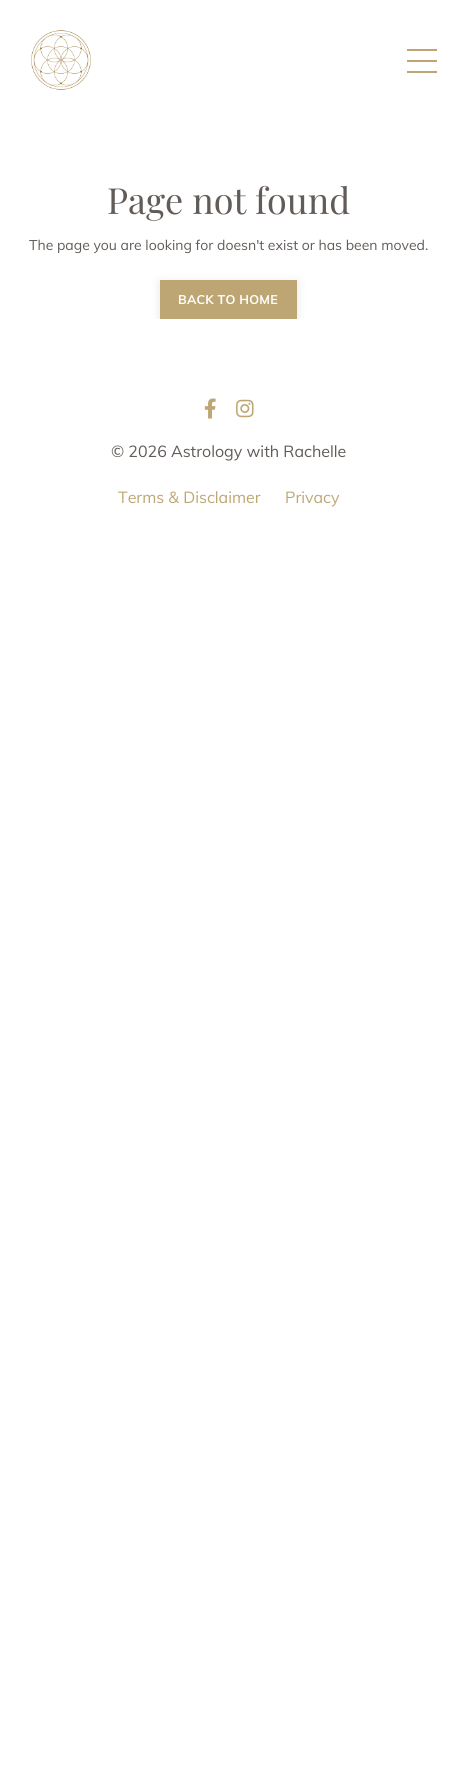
#include <cairo.h>
#include <math.h>
#include <stddef.h>


static void rgb(cairo_t *cr, int r, int g, int b)
{
	cairo_set_source_rgb(cr, r / 255.0, g / 255.0, b / 255.0);
}

static void face(cairo_t *cr, const char *family, double size, int italic, int bold)
{
	cairo_select_font_face(cr, family, italic ? CAIRO_FONT_SLANT_ITALIC : CAIRO_FONT_SLANT_NORMAL,
		bold ? CAIRO_FONT_WEIGHT_BOLD : CAIRO_FONT_WEIGHT_NORMAL);
	cairo_set_font_size(cr, size);
}

static void label(cairo_t *cr, double x, double y, const char *s)
{
	cairo_move_to(cr, x, y);
	cairo_show_text(cr, s);
}

static void tracked(cairo_t *cr, double x, double y, const char *s, double letter, double word)
{
	cairo_move_to(cr, x, y);
	while (*s) {
		char ch[5] = {0};
		int n = 0;
		do ch[n++] = *s++; while ((*s & 0xC0) == 0x80);
		cairo_show_text(cr, ch);
		cairo_rel_move_to(cr, letter + word * (*ch == ' '), 0);
	}
}

static void rect(cairo_t *cr, double x, double y, double w, double h)
{
	cairo_rectangle(cr, x, y, w, h);
	cairo_fill(cr);
}

static void rrect(cairo_t *cr, double x, double y, double w, double h, double r)
{
	cairo_new_sub_path(cr);
	cairo_arc(cr, x + w - r, y + h - r, r, 0, M_PI / 2);
	cairo_arc(cr, x + r, y + h - r, r, M_PI / 2, M_PI);
	cairo_arc(cr, x + r, y + r, r, M_PI, 1.5 * M_PI);
	cairo_arc(cr, x + w - r, y + r, r, 1.5 * M_PI, 2 * M_PI);
	cairo_close_path(cr);
}

static void soft_shadow(cairo_t *cr, double x, double y, double w, double h, double r, double blur, double alpha)
{
	cairo_push_group_with_content(cr, CAIRO_CONTENT_ALPHA);
	cairo_set_operator(cr, CAIRO_OPERATOR_SOURCE);
	for (int i = 15; i >= -15 && fmin(w, h) + blur * i / 3 > 0; i -= 2) {
		double e = blur * i / 6;
		cairo_set_source_rgba(cr, 0, 0, 0, alpha * erfc((i - 1) / 8.5) / 2);
		rrect(cr, x - e, y - e, w + 2 * e, h + 2 * e, fmax(0, fmin(r + e + blur * .6, fmin(w, h) / 2 + e)));
		cairo_fill(cr);
	}
	cairo_pattern_t *soft = cairo_pop_group(cr);
	cairo_mask(cr, soft);
	cairo_pattern_destroy(soft);
}

static void image(cairo_t *cr, const char *path, double x, double y, double w, double h)
{
	cairo_surface_t *image = cairo_image_surface_create_from_png(path);
	cairo_save(cr);
	cairo_set_source_surface(cr, image, x, y);
	cairo_rectangle(cr, x, y, w, h);
	cairo_fill(cr);
	cairo_restore(cr);
	cairo_surface_destroy(image);
}

static void draw(cairo_t *cr) {
	rgb(cr, 255, 255, 255);
	cairo_paint(cr);
	image(cr, "image0.png", 31, 30, 60, 60);
	rgb(cr, 189, 166, 115);
	rect(cr, 407, 49, 30, 2);
	rect(cr, 407, 60, 30, 2);
	rect(cr, 407, 71, 30, 2);
	face(cr, "Playfair Display", 36, 0, 0);
	rgb(cr, 98, 91, 87);
	label(cr, 107, 214, "Page not found");
	face(cr, "Muli", 14, 0, 0);
	label(cr, 29, 250, "The page you are looking for doesn't exist or has been moved.");
	cairo_save(cr);
	rrect(cr, 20, 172, 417, 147, 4);
	cairo_clip(cr);
	rgb(cr, 0, 0, 0);
	soft_shadow(cr, 160, 282, 137, 39, 0, 5, 0.1);
	cairo_restore(cr);
	rgb(cr, 189, 166, 115);
	rect(cr, 160, 280, 137, 39);
	face(cr, "Muli", 12.5, 0, 1);
	rgb(cr, 255, 255, 255);
	tracked(cr, 178, 304, "BACK TO HOME", 0.25, 0);
	image(cr, "image1.png", 204, 398, 12, 21);
	image(cr, "image2.png", 236, 399, 18, 19);
	face(cr, "Muli", 16, 0, 0);
	rgb(cr, 98, 91, 87);
	label(cr, 111, 457, "© 2026 Astrology with Rachelle");
	rgb(cr, 189, 166, 115);
	label(cr, 118, 503, "Terms & Disclaimer");
	label(cr, 285, 503, "Privacy");
}

int main(void) {
	cairo_surface_t *surface = cairo_image_surface_create(CAIRO_FORMAT_RGB24, 457, 1768);
	cairo_t *cr = cairo_create(surface);
	cairo_font_options_t *options = cairo_font_options_create();
	cairo_font_options_set_hint_metrics(options, CAIRO_HINT_METRICS_OFF);
	cairo_font_options_set_hint_style(options, CAIRO_HINT_STYLE_NONE);
	cairo_set_font_options(cr, options);
	cairo_set_miter_limit(cr, 4);
	draw(cr);
	cairo_surface_write_to_png(surface, "render.png");
	cairo_font_options_destroy(options);
	cairo_destroy(cr);
	cairo_surface_destroy(surface);
	return 0;
}
